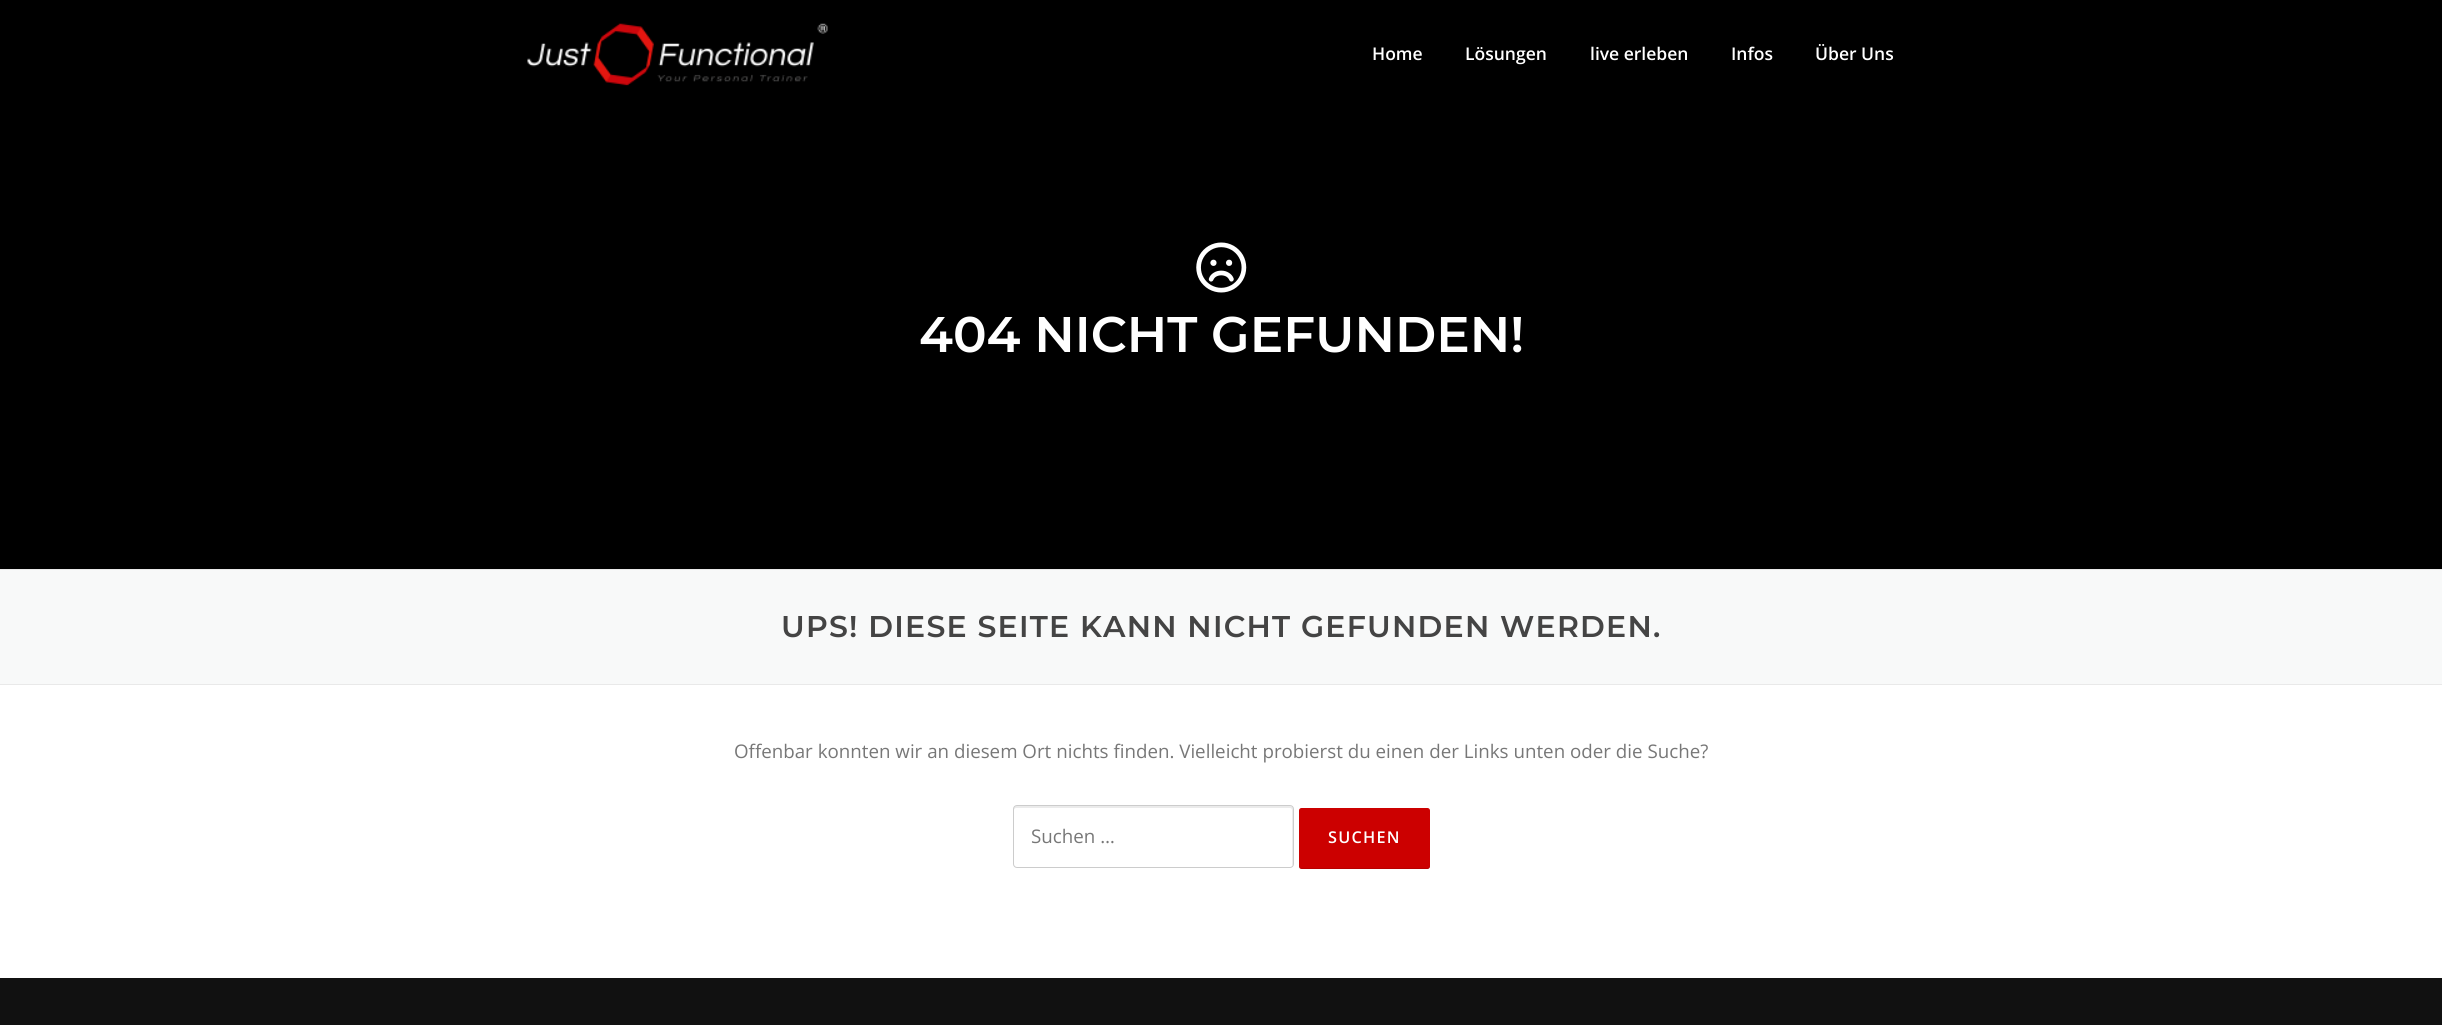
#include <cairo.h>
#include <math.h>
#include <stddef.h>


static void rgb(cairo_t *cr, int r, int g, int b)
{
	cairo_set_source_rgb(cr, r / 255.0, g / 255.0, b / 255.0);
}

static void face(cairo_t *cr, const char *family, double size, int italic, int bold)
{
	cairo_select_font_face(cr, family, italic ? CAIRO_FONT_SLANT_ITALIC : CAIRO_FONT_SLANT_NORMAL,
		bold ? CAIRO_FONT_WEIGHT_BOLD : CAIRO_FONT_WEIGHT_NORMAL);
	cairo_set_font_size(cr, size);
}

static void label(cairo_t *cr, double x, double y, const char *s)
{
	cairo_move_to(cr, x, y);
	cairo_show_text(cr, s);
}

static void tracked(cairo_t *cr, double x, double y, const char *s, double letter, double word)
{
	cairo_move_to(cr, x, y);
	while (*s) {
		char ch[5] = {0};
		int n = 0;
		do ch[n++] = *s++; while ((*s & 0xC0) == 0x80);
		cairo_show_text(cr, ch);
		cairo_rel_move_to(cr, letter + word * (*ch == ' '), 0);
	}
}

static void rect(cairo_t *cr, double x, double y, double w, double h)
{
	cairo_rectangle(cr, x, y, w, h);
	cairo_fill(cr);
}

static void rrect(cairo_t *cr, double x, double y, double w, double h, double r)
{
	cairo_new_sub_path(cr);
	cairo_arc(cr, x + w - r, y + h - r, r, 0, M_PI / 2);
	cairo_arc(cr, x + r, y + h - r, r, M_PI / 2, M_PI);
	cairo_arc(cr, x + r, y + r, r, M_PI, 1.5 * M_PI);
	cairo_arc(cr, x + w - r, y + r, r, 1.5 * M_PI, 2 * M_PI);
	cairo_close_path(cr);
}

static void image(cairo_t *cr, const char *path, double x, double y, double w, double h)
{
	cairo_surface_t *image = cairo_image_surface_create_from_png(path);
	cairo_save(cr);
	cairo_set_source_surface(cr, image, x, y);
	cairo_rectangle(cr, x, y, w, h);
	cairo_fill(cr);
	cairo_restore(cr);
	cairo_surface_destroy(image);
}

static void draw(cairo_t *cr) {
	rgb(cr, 255, 255, 255);
	cairo_paint(cr);
	rgb(cr, 0, 0, 0);
	rect(cr, 0, 0, 2442, 569);
	image(cr, "image0.png", 527, 23, 301, 63);
	face(cr, "Open Sans SemiBold", 17.5, 0, 0);
	rgb(cr, 255, 255, 255);
	label(cr, 1372, 60, "Home");
	label(cr, 1465, 60, "Lösungen");
	label(cr, 1590, 60, "live erleben");
	label(cr, 1731, 60, "Infos");
	label(cr, 1815, 60, "Über Uns");
	image(cr, "image1.png", 1196, 242, 51, 51);
	face(cr, "Montserrat SemiBold", 50, 0, 0);
	label(cr, 919, 352, "404 NICHT GEFUNDEN!");
	rgb(cr, 248, 249, 249);
	rect(cr, 0, 570, 2442, 114);
	rgb(cr, 233, 233, 233);
	rect(cr, 0, 569, 2442, 1);
	rect(cr, 0, 684, 2442, 1);
	face(cr, "Montserrat SemiBold", 30, 0, 0);
	rgb(cr, 68, 68, 68);
	tracked(cr, 781, 637, "UPS! DIESE SEITE KANN NICHT GEFUNDEN WERDEN.", 1.25, 0);
	face(cr, "Open Sans", 18.75, 0, 0);
	rgb(cr, 119, 119, 119);
	label(cr, 734, 758, "Offenbar konnten wir an diesem Ort nichts finden. Vielleicht probierst du einen der Links unten oder die Suche?");
	rgb(cr, 235, 235, 235);
	cairo_new_path(cr);
	cairo_move_to(cr, 1016, 808);
	cairo_line_to(cr, 1290, 808);
	cairo_curve_to(cr, 1291, 808, 1292, 809, 1292, 810);
	cairo_line_to(cr, 1292, 866);
	cairo_curve_to(cr, 1293, 865, 1293, 864, 1293, 864);
	cairo_line_to(cr, 1293, 808);
	cairo_curve_to(cr, 1293, 807, 1292, 806, 1290, 806);
	cairo_line_to(cr, 1016, 806);
	cairo_curve_to(cr, 1015, 806, 1014, 807, 1014, 808);
	cairo_line_to(cr, 1014, 810);
	cairo_curve_to(cr, 1014, 809, 1015, 808, 1016, 808);
	cairo_close_path(cr);
	cairo_fill(cr);
	rrect(cr, 1013.5, 805.5, 280, 62, 3.5);
	rgb(cr, 204, 204, 204);
	cairo_set_line_width(cr, 1);
	cairo_stroke(cr);
	rgb(cr, 119, 119, 119);
	label(cr, 1031, 843, "Suchen …");
	rgb(cr, 204, 0, 0);
	rrect(cr, 1299, 808, 131, 61, 2.5);
	cairo_fill(cr);
	cairo_set_source_rgba(cr, 0, 0, 0, 0.1);
	cairo_new_path(cr);
	cairo_move_to(cr, 1299, 865);
	cairo_line_to(cr, 1299, 866);
	cairo_curve_to(cr, 1299, 868, 1300, 869, 1302, 869);
	cairo_line_to(cr, 1428, 869);
	cairo_curve_to(cr, 1429, 869, 1430, 868, 1430, 866);
	cairo_line_to(cr, 1430, 865);
	cairo_line_to(cr, 1429, 867);
	cairo_line_to(cr, 1428, 868);
	cairo_line_to(cr, 1301, 868);
	cairo_curve_to(cr, 1300, 868, 1299, 866, 1299, 865);
	cairo_close_path(cr);
	cairo_fill(cr);
	face(cr, "Open Sans SemiBold", 16.25, 0, 0);
	rgb(cr, 255, 255, 255);
	tracked(cr, 1328, 843, "SUCHEN", 1.25, 0);
	rgb(cr, 17, 17, 17);
	rect(cr, 0, 978, 2442, 47);
}

int main(void) {
	cairo_surface_t *surface = cairo_image_surface_create(CAIRO_FORMAT_RGB24, 2442, 1025);
	cairo_t *cr = cairo_create(surface);
	cairo_font_options_t *options = cairo_font_options_create();
	cairo_font_options_set_hint_metrics(options, CAIRO_HINT_METRICS_OFF);
	cairo_font_options_set_hint_style(options, CAIRO_HINT_STYLE_NONE);
	cairo_set_font_options(cr, options);
	cairo_set_miter_limit(cr, 4);
	draw(cr);
	cairo_surface_write_to_png(surface, "render.png");
	cairo_font_options_destroy(options);
	cairo_destroy(cr);
	cairo_surface_destroy(surface);
	return 0;
}
